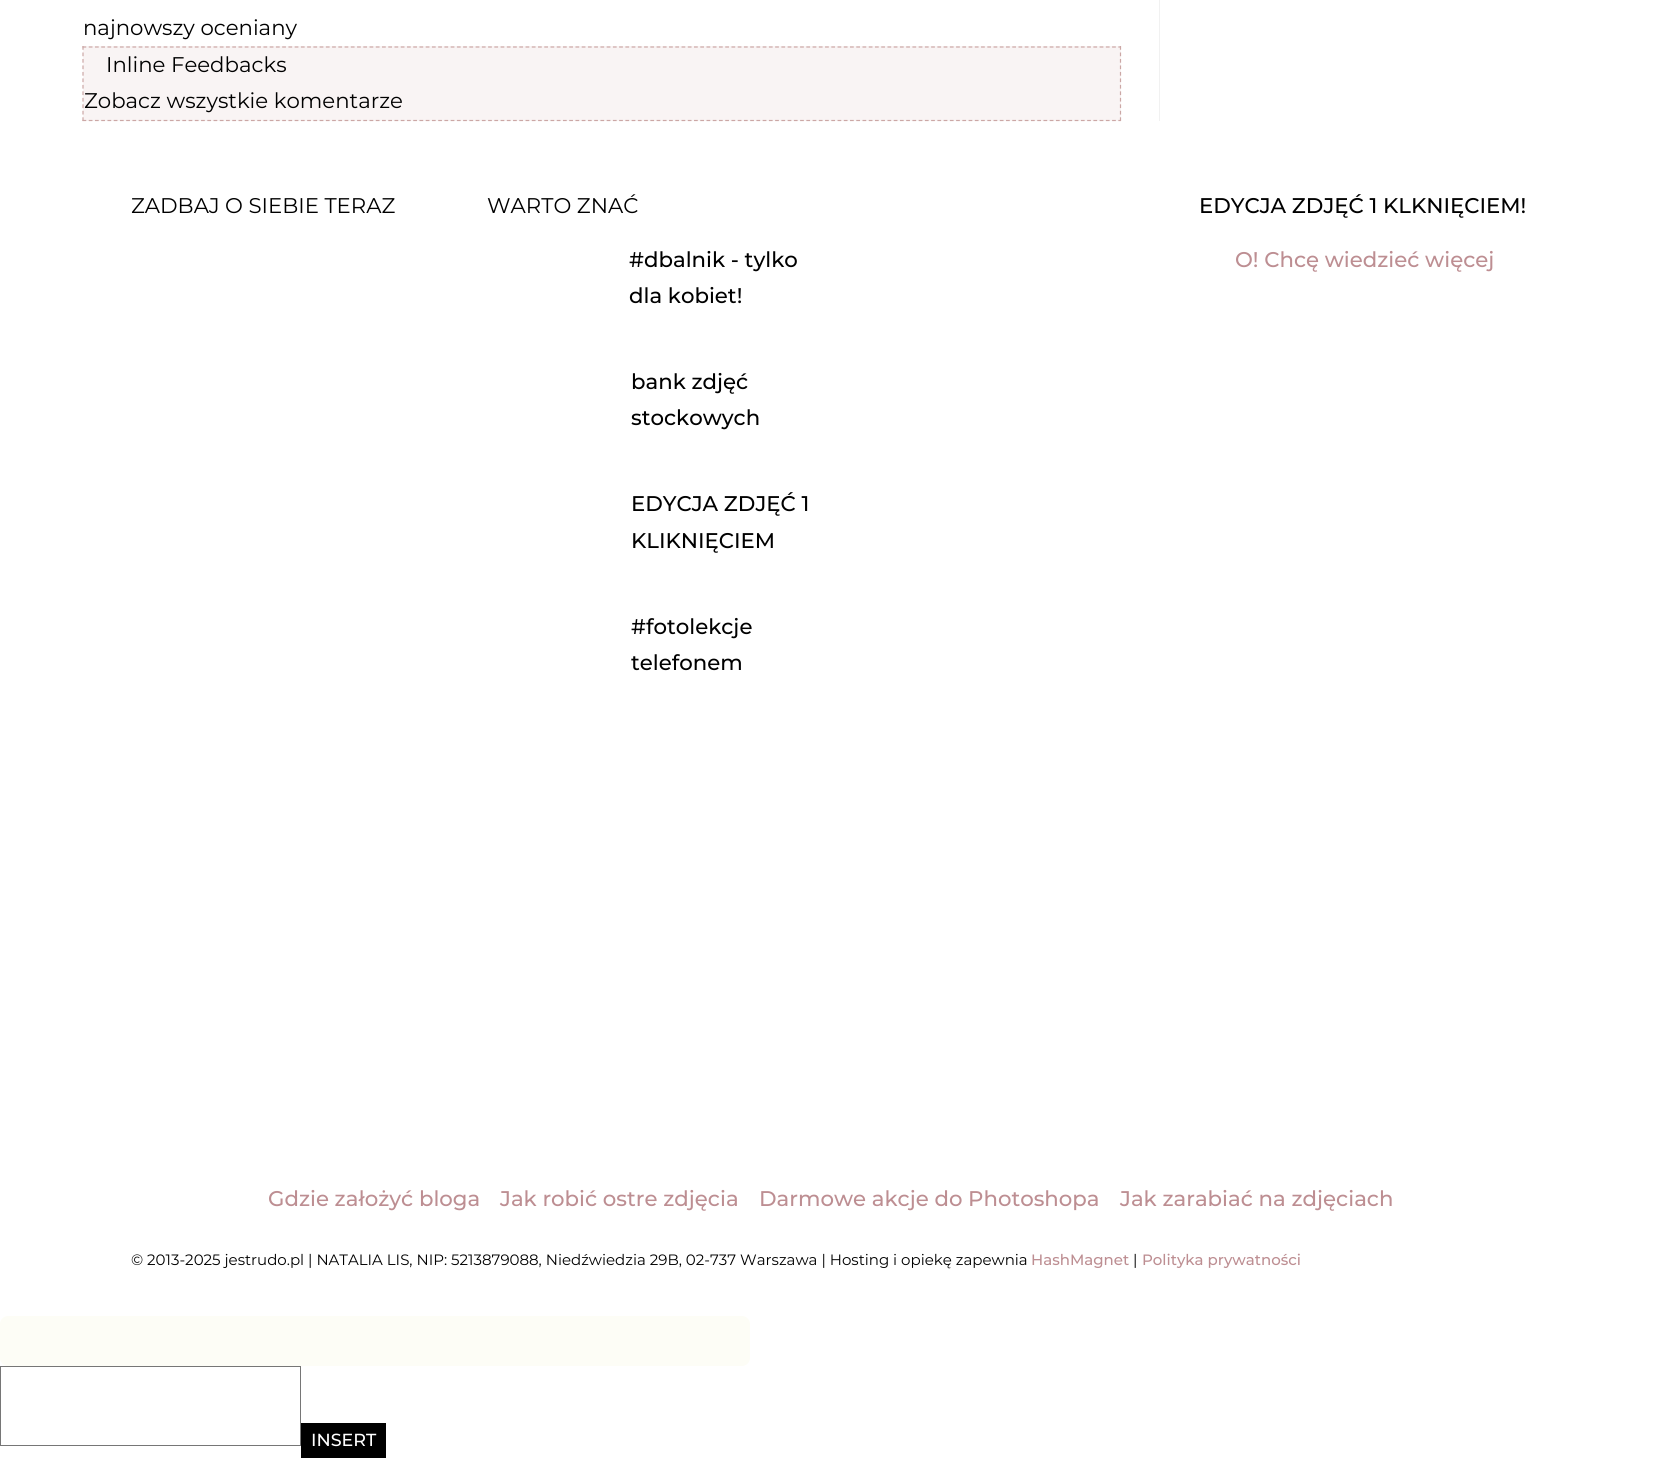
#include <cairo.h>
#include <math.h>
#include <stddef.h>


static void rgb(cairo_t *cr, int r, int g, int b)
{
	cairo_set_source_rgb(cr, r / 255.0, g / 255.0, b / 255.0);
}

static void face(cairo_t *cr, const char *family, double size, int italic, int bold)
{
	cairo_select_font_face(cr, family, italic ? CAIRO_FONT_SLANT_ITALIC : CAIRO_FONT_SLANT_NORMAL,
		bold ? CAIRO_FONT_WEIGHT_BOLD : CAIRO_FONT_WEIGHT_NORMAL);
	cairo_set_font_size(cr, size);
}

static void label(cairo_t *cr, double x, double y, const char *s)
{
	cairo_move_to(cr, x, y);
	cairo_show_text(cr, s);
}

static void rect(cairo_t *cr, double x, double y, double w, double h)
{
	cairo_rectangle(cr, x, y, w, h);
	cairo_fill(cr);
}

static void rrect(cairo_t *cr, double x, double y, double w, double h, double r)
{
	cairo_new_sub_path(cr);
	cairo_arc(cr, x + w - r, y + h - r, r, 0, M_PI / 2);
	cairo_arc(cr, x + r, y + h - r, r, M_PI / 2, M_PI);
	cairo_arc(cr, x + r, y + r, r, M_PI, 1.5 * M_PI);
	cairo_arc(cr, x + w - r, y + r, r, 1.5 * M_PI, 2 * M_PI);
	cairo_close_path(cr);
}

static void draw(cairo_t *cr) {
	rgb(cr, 255, 255, 255);
	cairo_paint(cr);
	rgb(cr, 241, 241, 241);
	rect(cr, 1159, 0, 1, 121);
	face(cr, "Montserrat", 21.25, 0, 0);
	rgb(cr, 0, 0, 0);
	label(cr, 83, 35, "najnowszy oceniany");
	rgb(cr, 249, 244, 244);
	rect(cr, 83, 46, 1038, 75);
	cairo_new_path(cr);
	cairo_move_to(cr, 82.5, 47);
	cairo_line_to(cr, 1121, 47);
	rgb(cr, 203, 167, 165);
	cairo_set_line_width(cr, 1.2);
	cairo_set_dash(cr, (double[]){3.75, 2.49}, 2, 0);
	cairo_stroke(cr);
	cairo_new_path(cr);
	cairo_move_to(cr, 1120.5, 46);
	cairo_line_to(cr, 1120.5, 121);
	cairo_set_dash(cr, (double[]){3.75, 2.73}, 2, 0);
	cairo_stroke(cr);
	cairo_new_path(cr);
	cairo_move_to(cr, 82.5, 120.5);
	cairo_line_to(cr, 1121, 120.5);
	cairo_set_dash(cr, (double[]){3.75, 2.49}, 2, 0);
	cairo_stroke(cr);
	cairo_new_path(cr);
	cairo_move_to(cr, 83, 46);
	cairo_line_to(cr, 83, 121);
	cairo_set_dash(cr, (double[]){3.75, 2.73}, 2, 0);
	cairo_stroke(cr);
	rgb(cr, 0, 0, 0);
	label(cr, 106, 72, "Inline Feedbacks");
	label(cr, 84, 108, "Zobacz wszystkie komentarze");
	label(cr, 131, 213, "ZADBAJ O SIEBIE TERAZ");
	label(cr, 487, 213, "WARTO ZNAĆ");
	face(cr, "Montserrat Medium", 21.25, 0, 0);
	label(cr, 629, 267, "#dbalnik - tylko");
	label(cr, 629, 303, "dla kobiet!");
	label(cr, 631, 389, "bank zdjęć");
	label(cr, 631, 425, "stockowych");
	label(cr, 631, 511, "EDYCJA ZDJĘĆ 1");
	label(cr, 631, 548, "KLIKNIĘCIEM");
	label(cr, 631, 634, "#fotolekcje");
	label(cr, 631, 670, "telefonem");
	label(cr, 1199, 213, "EDYCJA ZDJĘĆ 1 KLKNIĘCIEM!");
	rgb(cr, 189, 142, 146);
	label(cr, 1235, 267, "O! Chcę wiedzieć więcej");
	label(cr, 268, 1206, "Gdzie założyć bloga");
	label(cr, 500, 1206, "Jak robić ostre zdjęcia");
	label(cr, 759, 1206, "Darmowe akcje do Photoshopa");
	label(cr, 1120, 1206, "Jak zarabiać na zdjęciach");
	face(cr, "Montserrat", 15, 0, 0);
	rgb(cr, 0, 0, 0);
	label(cr, 131, 1265, "© 2013-2025 jestrudo.pl | NATALIA LIS, NIP: 5213879088, Niedźwiedzia 29B, 02-737 Warszawa | Hosting i opiekę zapewnia");
	face(cr, "Montserrat Medium", 15, 0, 0);
	rgb(cr, 189, 142, 146);
	label(cr, 1031, 1265, "HashMagnet");
	face(cr, "Montserrat", 15, 0, 0);
	rgb(cr, 0, 0, 0);
	label(cr, 1133, 1265, "|");
	face(cr, "Montserrat Medium", 15, 0, 0);
	rgb(cr, 189, 142, 146);
	label(cr, 1142, 1265, "Polityka prywatności");
	rgb(cr, 253, 253, 246);
	rrect(cr, 0, 1316, 750, 50, 8);
	cairo_fill(cr);
	cairo_rectangle(cr, 0.5, 1366.5, 300, 79);
	rgb(cr, 118, 118, 118);
	cairo_set_line_width(cr, 1);
	cairo_set_dash(cr, NULL, 0, 0);
	cairo_stroke(cr);
	rgb(cr, 0, 0, 0);
	rect(cr, 301, 1423, 85, 35);
	face(cr, "Montserrat Medium", 17.5, 0, 0);
	rgb(cr, 255, 255, 255);
	label(cr, 311, 1446, "INSERT");
}

int main(void) {
	cairo_surface_t *surface = cairo_image_surface_create(CAIRO_FORMAT_RGB24, 1661, 1458);
	cairo_t *cr = cairo_create(surface);
	cairo_font_options_t *options = cairo_font_options_create();
	cairo_font_options_set_hint_metrics(options, CAIRO_HINT_METRICS_OFF);
	cairo_font_options_set_hint_style(options, CAIRO_HINT_STYLE_NONE);
	cairo_set_font_options(cr, options);
	cairo_set_miter_limit(cr, 4);
	draw(cr);
	cairo_surface_write_to_png(surface, "render.png");
	cairo_font_options_destroy(options);
	cairo_destroy(cr);
	cairo_surface_destroy(surface);
	return 0;
}
